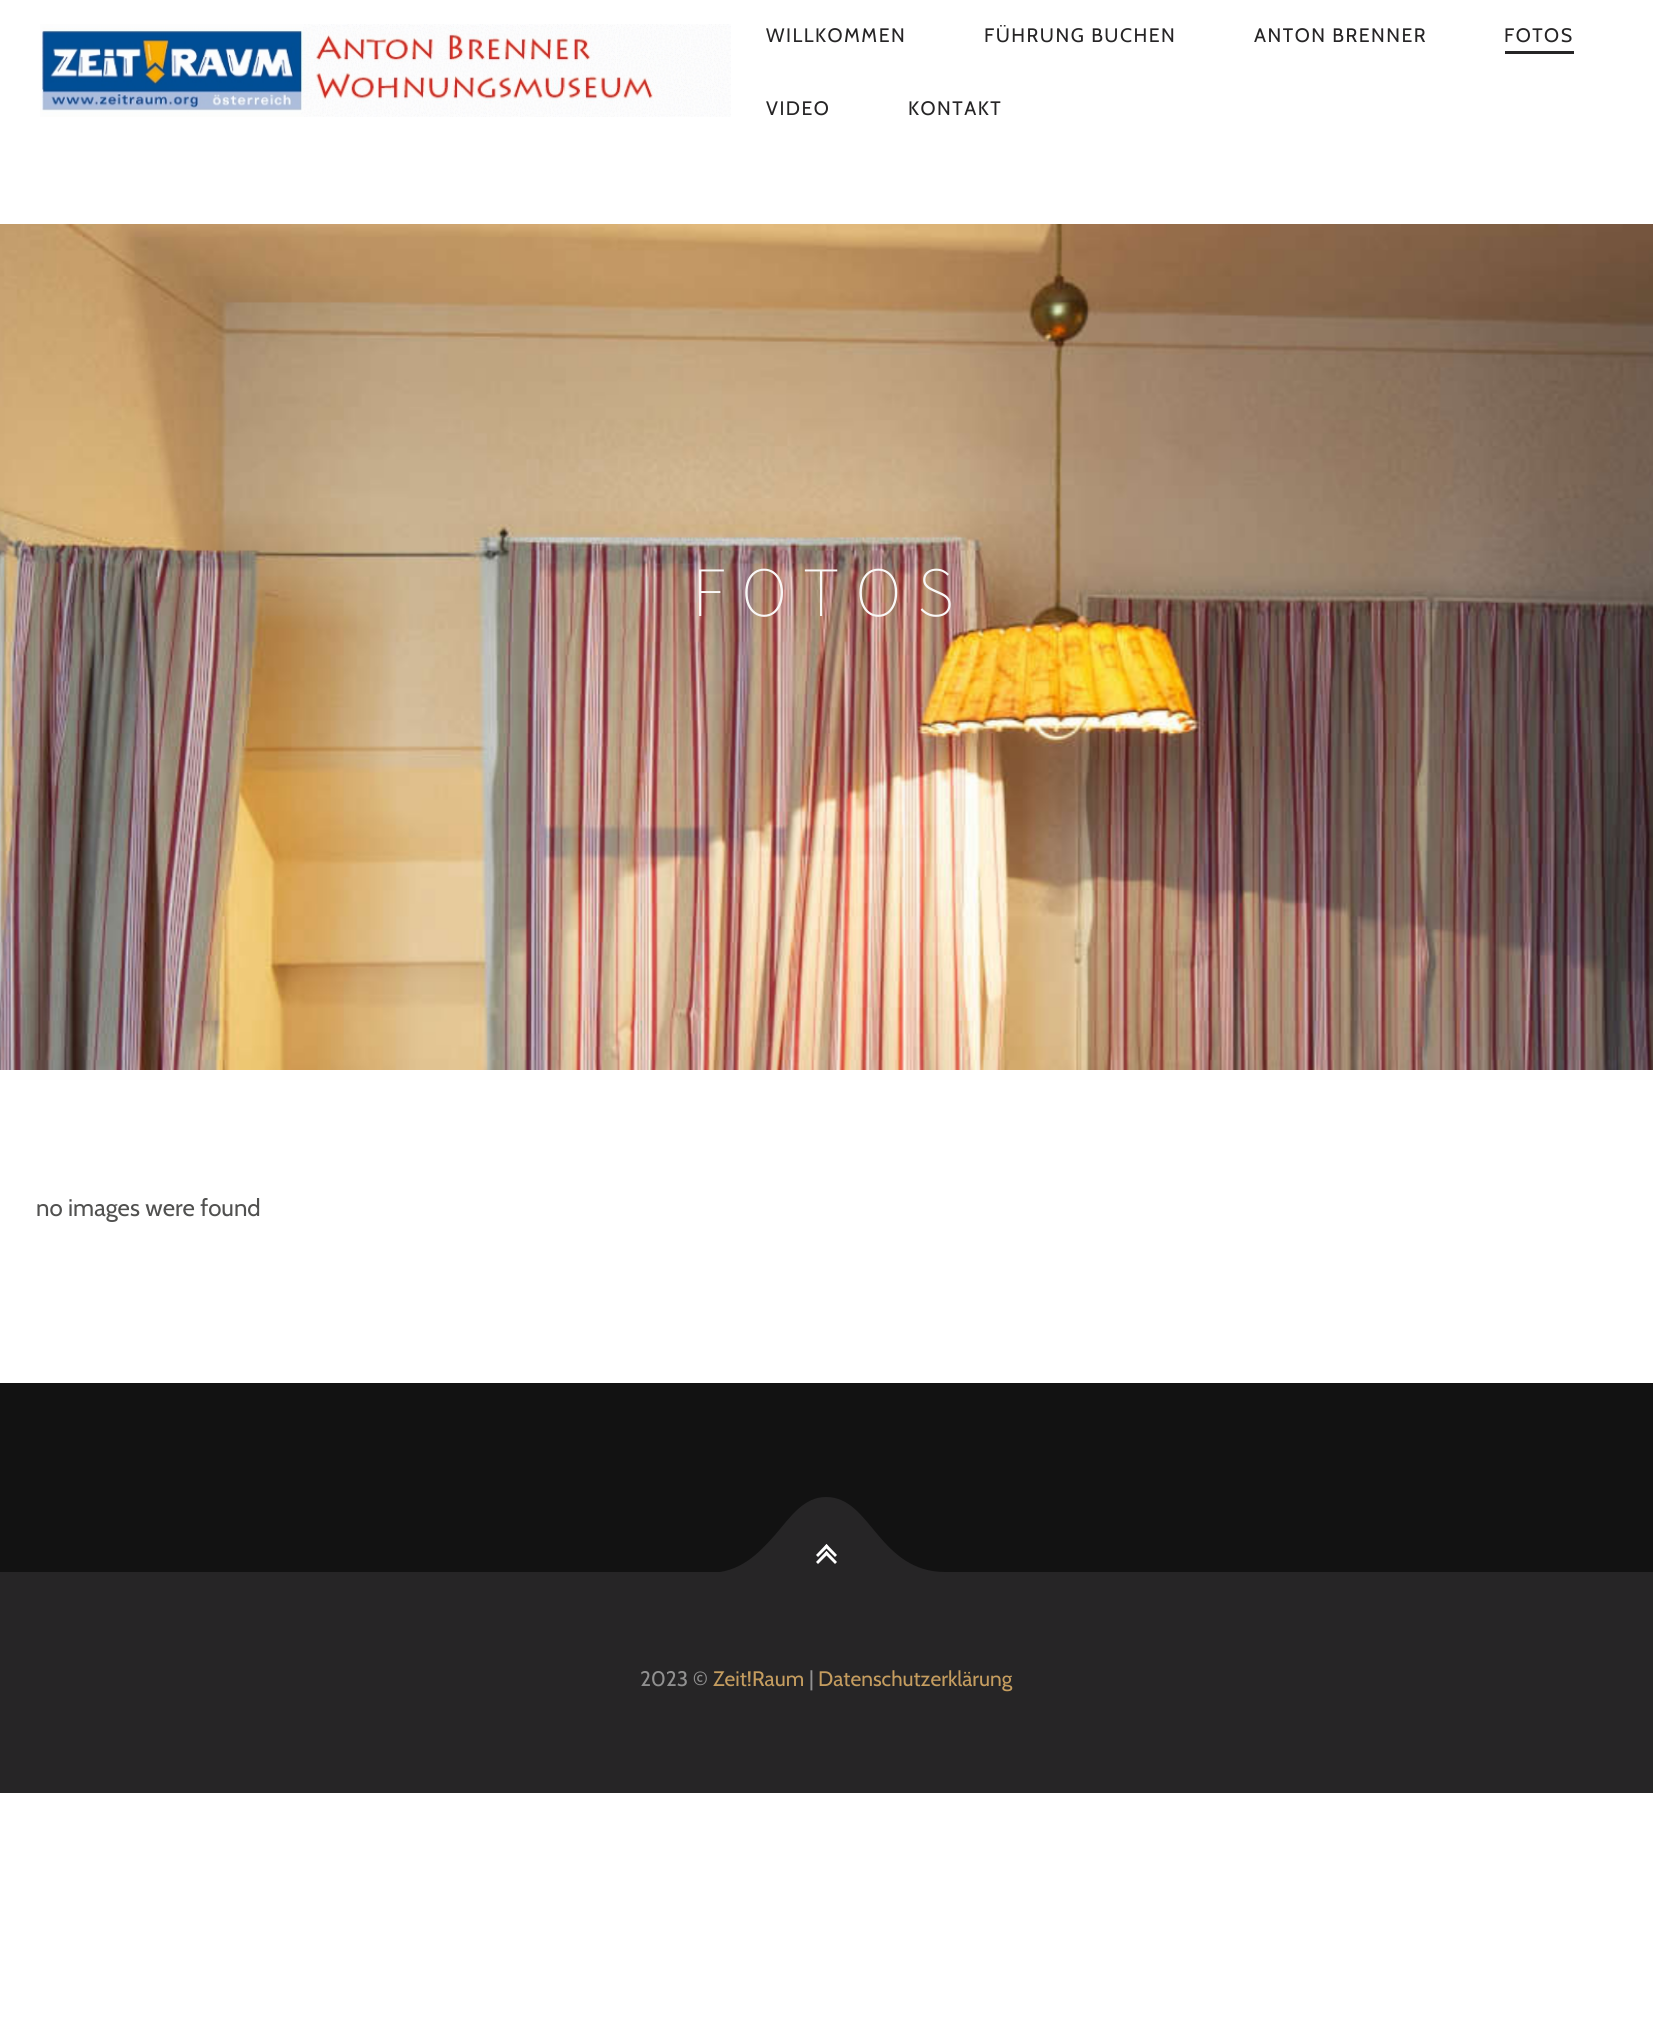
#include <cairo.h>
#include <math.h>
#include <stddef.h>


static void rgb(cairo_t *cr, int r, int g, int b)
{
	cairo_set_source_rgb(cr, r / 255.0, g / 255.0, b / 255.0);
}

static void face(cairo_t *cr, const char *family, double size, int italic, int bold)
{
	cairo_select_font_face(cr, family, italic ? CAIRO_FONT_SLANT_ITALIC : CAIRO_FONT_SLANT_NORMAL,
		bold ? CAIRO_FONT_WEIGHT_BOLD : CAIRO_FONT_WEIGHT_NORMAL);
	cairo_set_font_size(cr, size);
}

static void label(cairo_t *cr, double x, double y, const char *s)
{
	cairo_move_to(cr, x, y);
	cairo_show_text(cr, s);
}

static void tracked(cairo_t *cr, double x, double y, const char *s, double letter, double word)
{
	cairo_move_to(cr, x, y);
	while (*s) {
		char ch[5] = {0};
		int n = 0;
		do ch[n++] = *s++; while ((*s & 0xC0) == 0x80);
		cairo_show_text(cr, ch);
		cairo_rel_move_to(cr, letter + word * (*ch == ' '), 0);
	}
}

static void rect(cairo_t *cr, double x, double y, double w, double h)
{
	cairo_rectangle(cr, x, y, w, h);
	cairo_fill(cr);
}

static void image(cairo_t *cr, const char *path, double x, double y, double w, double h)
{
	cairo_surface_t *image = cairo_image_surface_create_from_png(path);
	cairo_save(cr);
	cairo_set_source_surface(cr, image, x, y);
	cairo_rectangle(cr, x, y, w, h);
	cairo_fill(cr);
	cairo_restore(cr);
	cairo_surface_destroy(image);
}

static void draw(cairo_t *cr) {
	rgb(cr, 255, 255, 255);
	cairo_paint(cr);
	image(cr, "image0.png", 40, 24, 691, 93);
	face(cr, "Cabin", 19.5, 0, 0);
	rgb(cr, 38, 37, 38);
	tracked(cr, 766, 42, "WILLKOMMEN", 1.5, 0);
	tracked(cr, 984, 42, "FÜHRUNG BUCHEN", 1.5, 0);
	tracked(cr, 1254, 42, "ANTON BRENNER", 1.5, 0);
	tracked(cr, 1504, 42, "FOTOS", 1.5, 0);
	rect(cr, 1505, 51, 69, 3);
	tracked(cr, 766, 115, "VIDEO", 1.5, 0);
	tracked(cr, 908, 115, "KONTAKT", 1.5, 0);
	image(cr, "image1.png", 0, 224, 1653, 846);
	face(cr, "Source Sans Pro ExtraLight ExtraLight", 70.5, 0, 0);
	rgb(cr, 249, 247, 246);
	tracked(cr, 692, 616, "FOTOS", 16, 0);
	face(cr, "Cabin", 24, 0, 0);
	rgb(cr, 81, 81, 80);
	label(cr, 36, 1216, "no images were found");
	rgb(cr, 18, 18, 18);
	rect(cr, 0, 1383, 1653, 189);
	rgb(cr, 38, 37, 38);
	rect(cr, 0, 1572, 1653, 221);
	cairo_new_path(cr);
	cairo_move_to(cr, 826, 1588);
	cairo_line_to(cr, 891, 1580);
	cairo_curve_to(cr, 922, 1576, 952, 1572, 945, 1572);
	cairo_curve_to(cr, 913, 1572, 894, 1554, 878, 1535);
	cairo_curve_to(cr, 862, 1516, 849, 1497, 826, 1497);
	cairo_curve_to(cr, 804, 1497, 791, 1516, 775, 1535);
	cairo_curve_to(cr, 758, 1554, 740, 1573, 708, 1573);
	cairo_curve_to(cr, 701, 1573, 698, 1573, 713, 1575);
	cairo_close_path(cr);
	cairo_fill(cr);
	rgb(cr, 255, 255, 255);
	cairo_new_path(cr);
	cairo_move_to(cr, 826.5, 1544);
	cairo_line_to(cr, 837, 1555);
	cairo_line_to(cr, 835, 1557);
	cairo_line_to(cr, 824.5, 1546.5);
	cairo_close_path(cr);
	cairo_fill(cr);
	cairo_new_path(cr);
	cairo_move_to(cr, 826.5, 1544);
	cairo_line_to(cr, 828.5, 1546.5);
	cairo_line_to(cr, 818, 1557);
	cairo_line_to(cr, 816, 1555);
	cairo_close_path(cr);
	cairo_fill(cr);
	cairo_new_path(cr);
	cairo_move_to(cr, 826.5, 1551);
	cairo_line_to(cr, 837, 1562);
	cairo_line_to(cr, 835, 1564);
	cairo_line_to(cr, 824.5, 1553.5);
	cairo_close_path(cr);
	cairo_fill(cr);
	cairo_new_path(cr);
	cairo_move_to(cr, 826.5, 1551);
	cairo_line_to(cr, 828.5, 1553.5);
	cairo_line_to(cr, 818, 1564);
	cairo_line_to(cr, 816, 1562);
	cairo_close_path(cr);
	cairo_fill(cr);
	face(cr, "Cabin", 21, 0, 0);
	rgb(cr, 145, 145, 145);
	label(cr, 640, 1686, "2023 ©");
	rgb(cr, 197, 157, 95);
	label(cr, 713, 1686, "Zeit!Raum");
	rgb(cr, 145, 145, 145);
	label(cr, 809, 1686, "|");
	rgb(cr, 197, 157, 95);
	label(cr, 818, 1686, "Datenschutzerklärung");
}

int main(void) {
	cairo_surface_t *surface = cairo_image_surface_create(CAIRO_FORMAT_RGB24, 1653, 2029);
	cairo_t *cr = cairo_create(surface);
	cairo_font_options_t *options = cairo_font_options_create();
	cairo_font_options_set_hint_metrics(options, CAIRO_HINT_METRICS_OFF);
	cairo_font_options_set_hint_style(options, CAIRO_HINT_STYLE_NONE);
	cairo_set_font_options(cr, options);
	cairo_set_miter_limit(cr, 4);
	draw(cr);
	cairo_surface_write_to_png(surface, "render.png");
	cairo_font_options_destroy(options);
	cairo_destroy(cr);
	cairo_surface_destroy(surface);
	return 0;
}
